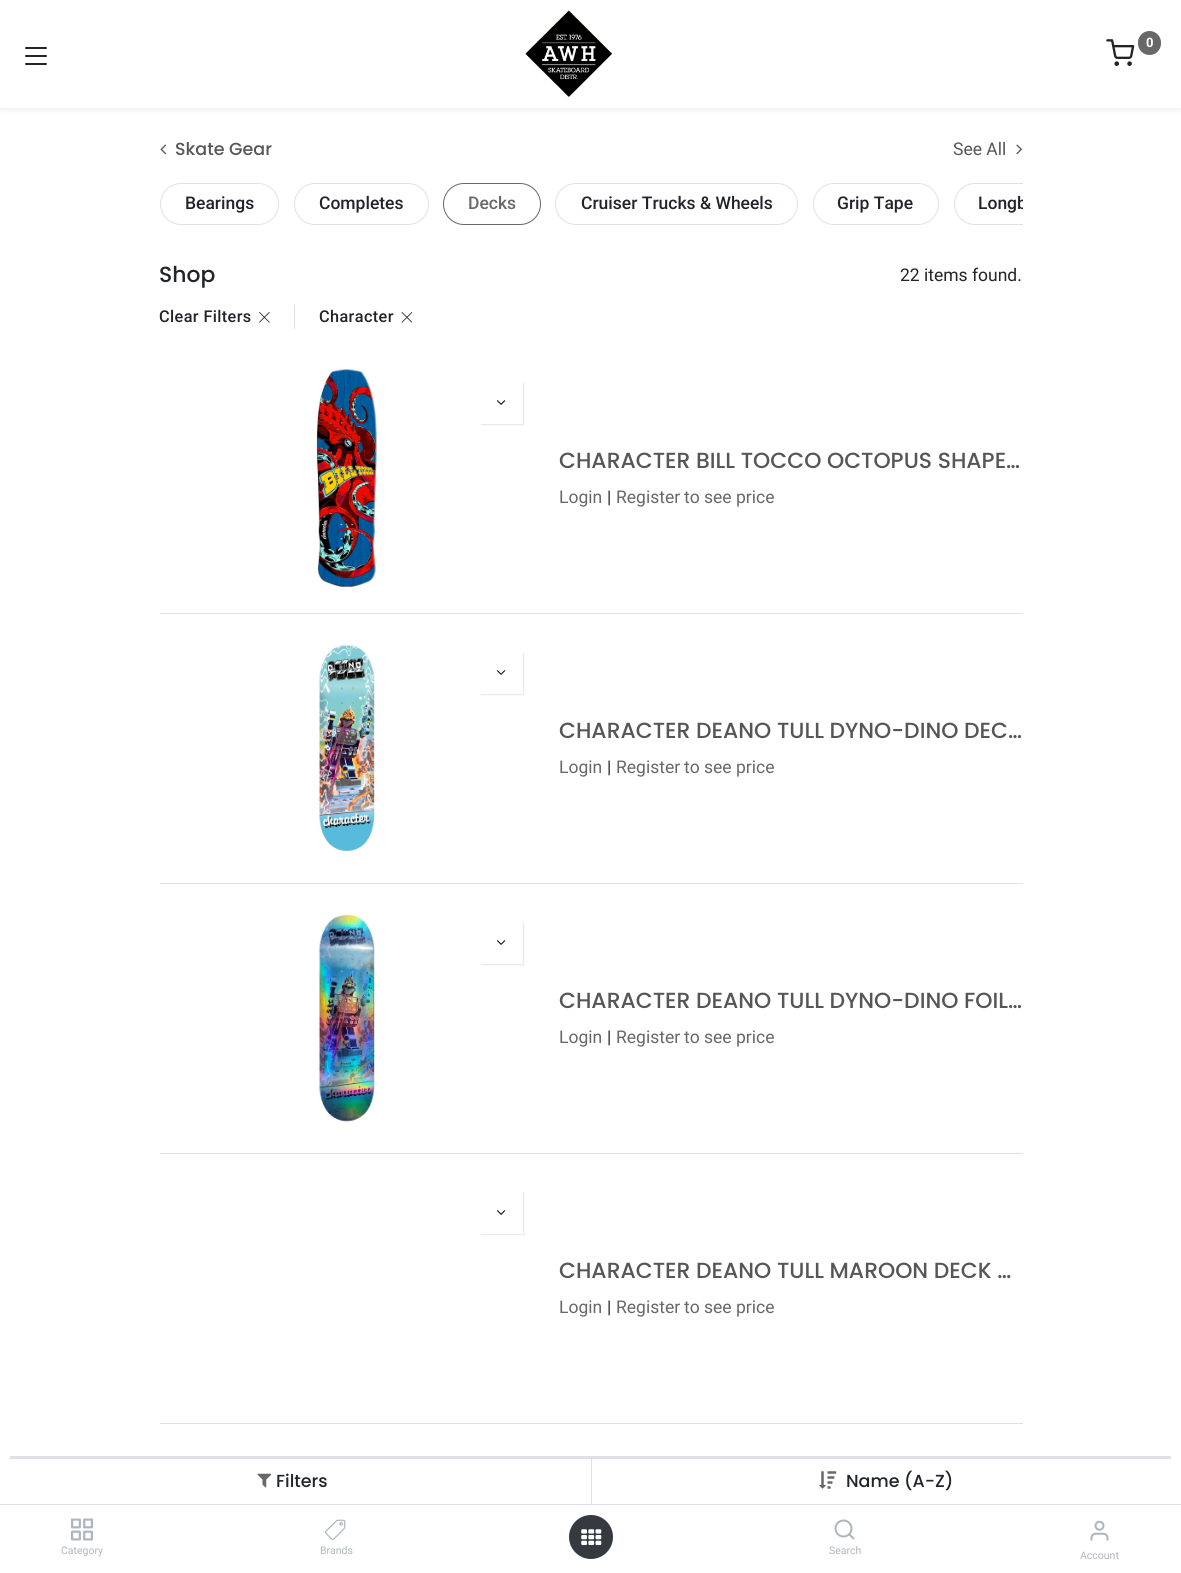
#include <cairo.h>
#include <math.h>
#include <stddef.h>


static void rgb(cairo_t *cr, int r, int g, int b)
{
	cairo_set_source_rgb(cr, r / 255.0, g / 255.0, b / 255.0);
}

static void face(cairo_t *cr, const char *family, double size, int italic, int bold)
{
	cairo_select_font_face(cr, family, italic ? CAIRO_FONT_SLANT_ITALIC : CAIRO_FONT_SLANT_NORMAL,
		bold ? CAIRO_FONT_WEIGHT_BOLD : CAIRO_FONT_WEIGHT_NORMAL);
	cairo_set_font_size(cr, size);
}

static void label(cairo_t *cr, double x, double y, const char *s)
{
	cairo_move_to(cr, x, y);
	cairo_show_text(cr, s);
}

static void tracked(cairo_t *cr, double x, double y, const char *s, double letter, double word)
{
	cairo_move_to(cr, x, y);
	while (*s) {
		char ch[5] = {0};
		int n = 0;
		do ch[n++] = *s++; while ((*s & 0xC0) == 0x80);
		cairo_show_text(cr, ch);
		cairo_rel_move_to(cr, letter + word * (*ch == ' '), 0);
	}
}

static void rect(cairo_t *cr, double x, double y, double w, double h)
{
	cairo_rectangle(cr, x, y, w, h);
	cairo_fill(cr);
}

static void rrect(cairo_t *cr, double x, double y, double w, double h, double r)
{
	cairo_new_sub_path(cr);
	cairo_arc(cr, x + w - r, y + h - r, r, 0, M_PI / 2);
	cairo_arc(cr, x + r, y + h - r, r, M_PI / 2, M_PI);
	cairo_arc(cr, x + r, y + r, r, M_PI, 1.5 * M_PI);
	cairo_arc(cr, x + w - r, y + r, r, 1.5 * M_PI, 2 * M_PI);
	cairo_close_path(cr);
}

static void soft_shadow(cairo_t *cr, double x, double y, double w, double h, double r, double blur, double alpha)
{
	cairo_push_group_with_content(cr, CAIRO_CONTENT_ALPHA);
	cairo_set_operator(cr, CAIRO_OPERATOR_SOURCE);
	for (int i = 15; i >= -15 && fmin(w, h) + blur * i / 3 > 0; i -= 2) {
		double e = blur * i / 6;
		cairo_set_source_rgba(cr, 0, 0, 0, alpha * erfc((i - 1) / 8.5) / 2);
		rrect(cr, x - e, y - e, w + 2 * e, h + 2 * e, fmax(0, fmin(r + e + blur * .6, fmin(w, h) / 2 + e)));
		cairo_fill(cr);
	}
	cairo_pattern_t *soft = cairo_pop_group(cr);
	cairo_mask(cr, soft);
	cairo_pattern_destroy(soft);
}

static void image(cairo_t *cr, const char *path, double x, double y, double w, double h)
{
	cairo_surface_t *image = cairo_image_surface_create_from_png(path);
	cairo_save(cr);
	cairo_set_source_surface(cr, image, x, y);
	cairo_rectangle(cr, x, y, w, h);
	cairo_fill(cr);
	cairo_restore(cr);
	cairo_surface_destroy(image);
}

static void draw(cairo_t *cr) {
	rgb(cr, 255, 255, 255);
	cairo_paint(cr);
	rgb(cr, 0, 0, 0);
	soft_shadow(cr, 0, 3, 1181, 107, 0, 2.5, 0.07);
	rgb(cr, 255, 255, 255);
	rect(cr, 0, 0, 1181, 108);
	image(cr, "image0.png", 525, 10, 87, 87);
	image(cr, "image1.png", 1106, 39, 29, 27);
	rgb(cr, 104, 104, 104);
	rrect(cr, 1138, 31, 23, 24, 11.5);
	cairo_fill(cr);
	face(cr, "Roboto", 13, 0, 1);
	rgb(cr, 255, 255, 255);
	label(cr, 1146, 47, "0");
	image(cr, "image2.png", 25, 47, 22, 18);
	image(cr, "image3.png", 160, 144, 7, 11);
	face(cr, "Poppins Medium", 17.5, 0, 0);
	rgb(cr, 86, 86, 86);
	label(cr, 175, 155, "Skate Gear");
	face(cr, "Roboto", 17.5, 0, 0);
	label(cr, 953, 155, "See All");
	image(cr, "image4.png", 1016, 144, 6, 11);
	rrect(cr, 160.5, 183.5, 118, 41, 20.5);
	rgb(cr, 222, 226, 230);
	cairo_set_line_width(cr, 1);
	cairo_stroke(cr);
	face(cr, "Roboto Medium", 17.5, 0, 0);
	rgb(cr, 33, 37, 41);
	label(cr, 185, 209, "Bearings");
	rrect(cr, 294.5, 183.5, 134, 41, 20.5);
	rgb(cr, 222, 226, 230);
	cairo_stroke(cr);
	rgb(cr, 33, 37, 41);
	label(cr, 319, 209, "Completes");
	rrect(cr, 443.5, 183.5, 97, 41, 20.5);
	rgb(cr, 104, 104, 104);
	cairo_stroke(cr);
	label(cr, 468, 209, "Decks");
	rrect(cr, 555.5, 183.5, 242, 41, 20.5);
	rgb(cr, 222, 226, 230);
	cairo_stroke(cr);
	rgb(cr, 33, 37, 41);
	label(cr, 581, 209, "Cruiser Trucks & Wheels");
	rrect(cr, 813.5, 183.5, 125, 41, 20.5);
	rgb(cr, 222, 226, 230);
	cairo_stroke(cr);
	rgb(cr, 33, 37, 41);
	label(cr, 837, 209, "Grip Tape");
	cairo_save(cr);
	cairo_rectangle(cr, 160, 183, 863, 47);
	cairo_clip(cr);
	rrect(cr, 954.5, 183.5, 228, 41, 20.5);
	rgb(cr, 222, 226, 230);
	cairo_stroke(cr);
	rgb(cr, 33, 37, 41);
	label(cr, 978, 209, "Longb");
	cairo_restore(cr);
	face(cr, "Poppins Medium", 21.9, 0, 0);
	label(cr, 159, 282, "Shop");
	face(cr, "Roboto", 17.5, 0, 0);
	label(cr, 900, 281, "22 items found.");
	rgb(cr, 222, 226, 230);
	rect(cr, 294, 305, 1, 24);
	face(cr, "Roboto Medium", 16.25, 0, 0);
	rgb(cr, 33, 37, 41);
	tracked(cr, 159, 322, "Clear Filters", 0.4, 0);
	image(cr, "image5.png", 259, 312, 11, 11);
	tracked(cr, 319, 322, "Character", 0.4, 0);
	image(cr, "image6.png", 401, 312, 12, 11);
	rgb(cr, 222, 226, 230);
	rect(cr, 160, 613, 863, 1);
	image(cr, "image7.png", 316, 369, 62, 219);
	rgb(cr, 0, 0, 0);
	soft_shadow(cr, 481, 383, 43, 42, 0, 0.5, 0.1);
	rgb(cr, 255, 255, 255);
	rect(cr, 480, 382, 43, 42);
	image(cr, "image8.png", 496, 400, 10, 5);
	face(cr, "Poppins Medium", 21.9, 0, 0);
	rgb(cr, 86, 86, 86);
	label(cr, 559, 468, "CHARACTER BILL TOCCO OCTOPUS SHAPE…");
	face(cr, "Roboto", 17.5, 0, 0);
	rgb(cr, 104, 104, 104);
	label(cr, 559, 503, "Login");
	rgb(cr, 33, 37, 41);
	label(cr, 607, 503, "|");
	rgb(cr, 104, 104, 104);
	label(cr, 616, 503, "Register");
	label(cr, 684, 503, "to see price");
	rgb(cr, 222, 226, 230);
	rect(cr, 160, 883, 863, 1);
	image(cr, "image9.png", 318, 645, 57, 207);
	rgb(cr, 0, 0, 0);
	soft_shadow(cr, 481, 653, 43, 42, 0, 0.5, 0.1);
	rgb(cr, 255, 255, 255);
	rect(cr, 480, 652, 43, 42);
	image(cr, "image8.png", 496, 670, 10, 5);
	face(cr, "Poppins Medium", 21.9, 0, 0);
	rgb(cr, 86, 86, 86);
	label(cr, 559, 738, "CHARACTER DEANO TULL DYNO-DINO DEC…");
	face(cr, "Roboto", 17.5, 0, 0);
	rgb(cr, 104, 104, 104);
	label(cr, 559, 773, "Login");
	rgb(cr, 33, 37, 41);
	label(cr, 607, 773, "|");
	rgb(cr, 104, 104, 104);
	label(cr, 616, 773, "Register");
	label(cr, 684, 773, "to see price");
	rgb(cr, 222, 226, 230);
	rect(cr, 160, 1153, 863, 1);
	image(cr, "image10.png", 318, 914, 57, 208);
	rgb(cr, 0, 0, 0);
	soft_shadow(cr, 481, 923, 43, 42, 0, 0.5, 0.1);
	rgb(cr, 255, 255, 255);
	rect(cr, 480, 922, 43, 42);
	image(cr, "image8.png", 496, 940, 10, 5);
	face(cr, "Poppins Medium", 21.9, 0, 0);
	rgb(cr, 86, 86, 86);
	label(cr, 559, 1008, "CHARACTER DEANO TULL DYNO-DINO FOIL…");
	face(cr, "Roboto", 17.5, 0, 0);
	rgb(cr, 104, 104, 104);
	label(cr, 559, 1043, "Login");
	rgb(cr, 33, 37, 41);
	label(cr, 607, 1043, "|");
	rgb(cr, 104, 104, 104);
	label(cr, 616, 1043, "Register");
	label(cr, 684, 1043, "to see price");
	rgb(cr, 222, 226, 230);
	rect(cr, 160, 1423, 863, 1);
	rgb(cr, 0, 0, 0);
	soft_shadow(cr, 481, 1193, 43, 42, 0, 0.5, 0.1);
	rgb(cr, 255, 255, 255);
	rect(cr, 480, 1192, 43, 42);
	image(cr, "image8.png", 496, 1210, 10, 5);
	face(cr, "Poppins Medium", 21.9, 0, 0);
	rgb(cr, 86, 86, 86);
	label(cr, 559, 1278, "CHARACTER DEANO TULL MAROON DECK …");
	face(cr, "Roboto", 17.5, 0, 0);
	rgb(cr, 104, 104, 104);
	label(cr, 559, 1313, "Login");
	rgb(cr, 33, 37, 41);
	label(cr, 607, 1313, "|");
	rgb(cr, 104, 104, 104);
	label(cr, 616, 1313, "Register");
	label(cr, 684, 1313, "to see price");
	rgb(cr, 222, 226, 230);
	rect(cr, 10, 1456, 1161, 3);
	rect(cr, 0, 1504, 1181, 1);
	image(cr, "image11.png", 257, 1473, 15, 15);
	face(cr, "Poppins Medium", 17.5, 0, 0);
	rgb(cr, 33, 37, 41);
	label(cr, 276, 1487, "Filters");
	rgb(cr, 222, 226, 230);
	rect(cr, 591, 1459, 1, 45);
	image(cr, "image12.png", 819, 1471, 18, 18);
	rgb(cr, 33, 37, 41);
	label(cr, 846, 1487, "Name (A-Z)");
	image(cr, "image13.png", 71, 1518, 22, 23);
	face(cr, "Roboto", 10.5, 0, 0);
	rgb(cr, 173, 181, 189);
	label(cr, 61, 1554, "Category");
	image(cr, "image14.png", 324, 1519, 22, 22);
	label(cr, 320, 1554, "Brands");
	rgb(cr, 52, 58, 64);
	cairo_new_path(cr);
	cairo_arc(cr, 591, 1537, 22, 0, 2 * M_PI);
	cairo_fill(cr);
	image(cr, "image15.png", 581, 1529, 21, 16);
	image(cr, "image16.png", 834, 1519, 21, 21);
	rgb(cr, 173, 181, 189);
	label(cr, 829, 1554, "Search");
	image(cr, "image17.png", 1090, 1520, 19, 21);
	label(cr, 1080, 1559, "Account");
}

int main(void) {
	cairo_surface_t *surface = cairo_image_surface_create(CAIRO_FORMAT_RGB24, 1181, 1573);
	cairo_t *cr = cairo_create(surface);
	cairo_font_options_t *options = cairo_font_options_create();
	cairo_font_options_set_hint_metrics(options, CAIRO_HINT_METRICS_OFF);
	cairo_font_options_set_hint_style(options, CAIRO_HINT_STYLE_NONE);
	cairo_set_font_options(cr, options);
	cairo_set_miter_limit(cr, 4);
	draw(cr);
	cairo_surface_write_to_png(surface, "render.png");
	cairo_font_options_destroy(options);
	cairo_destroy(cr);
	cairo_surface_destroy(surface);
	return 0;
}
